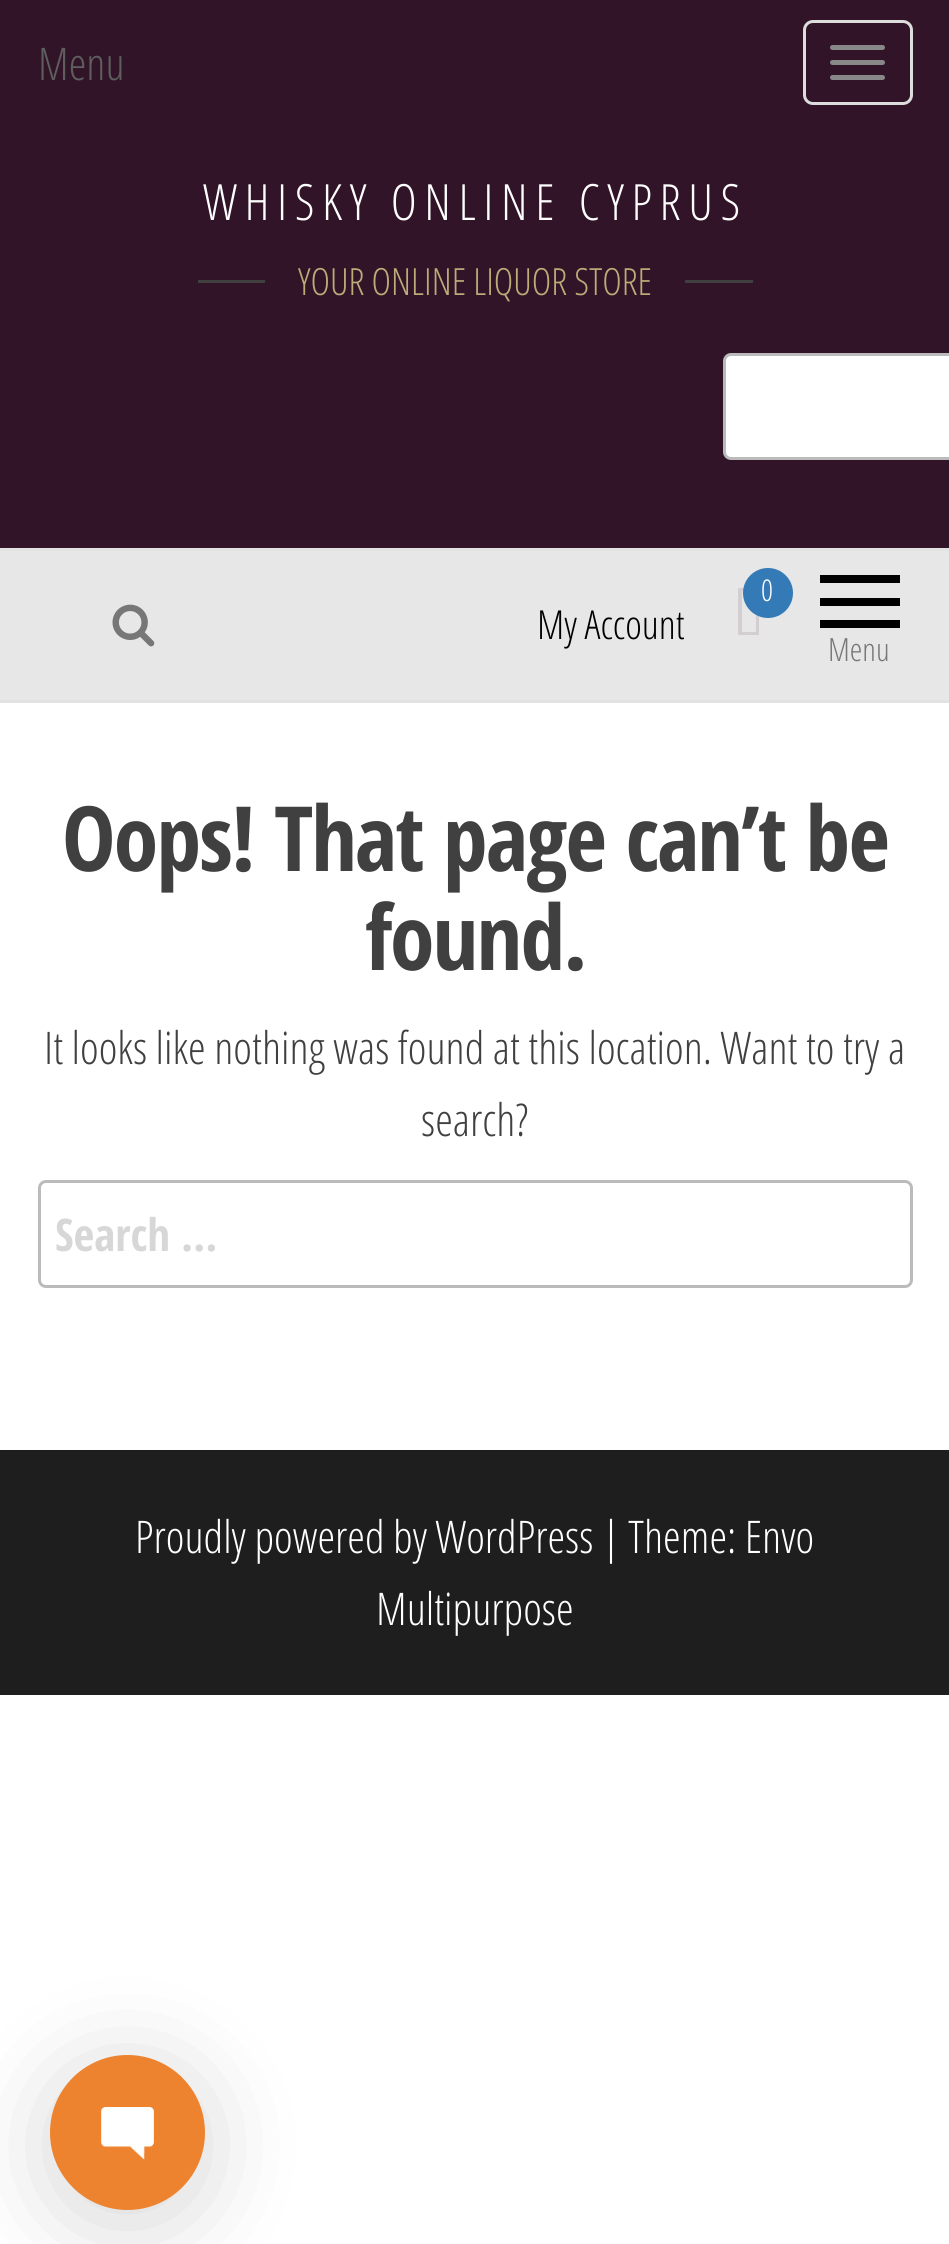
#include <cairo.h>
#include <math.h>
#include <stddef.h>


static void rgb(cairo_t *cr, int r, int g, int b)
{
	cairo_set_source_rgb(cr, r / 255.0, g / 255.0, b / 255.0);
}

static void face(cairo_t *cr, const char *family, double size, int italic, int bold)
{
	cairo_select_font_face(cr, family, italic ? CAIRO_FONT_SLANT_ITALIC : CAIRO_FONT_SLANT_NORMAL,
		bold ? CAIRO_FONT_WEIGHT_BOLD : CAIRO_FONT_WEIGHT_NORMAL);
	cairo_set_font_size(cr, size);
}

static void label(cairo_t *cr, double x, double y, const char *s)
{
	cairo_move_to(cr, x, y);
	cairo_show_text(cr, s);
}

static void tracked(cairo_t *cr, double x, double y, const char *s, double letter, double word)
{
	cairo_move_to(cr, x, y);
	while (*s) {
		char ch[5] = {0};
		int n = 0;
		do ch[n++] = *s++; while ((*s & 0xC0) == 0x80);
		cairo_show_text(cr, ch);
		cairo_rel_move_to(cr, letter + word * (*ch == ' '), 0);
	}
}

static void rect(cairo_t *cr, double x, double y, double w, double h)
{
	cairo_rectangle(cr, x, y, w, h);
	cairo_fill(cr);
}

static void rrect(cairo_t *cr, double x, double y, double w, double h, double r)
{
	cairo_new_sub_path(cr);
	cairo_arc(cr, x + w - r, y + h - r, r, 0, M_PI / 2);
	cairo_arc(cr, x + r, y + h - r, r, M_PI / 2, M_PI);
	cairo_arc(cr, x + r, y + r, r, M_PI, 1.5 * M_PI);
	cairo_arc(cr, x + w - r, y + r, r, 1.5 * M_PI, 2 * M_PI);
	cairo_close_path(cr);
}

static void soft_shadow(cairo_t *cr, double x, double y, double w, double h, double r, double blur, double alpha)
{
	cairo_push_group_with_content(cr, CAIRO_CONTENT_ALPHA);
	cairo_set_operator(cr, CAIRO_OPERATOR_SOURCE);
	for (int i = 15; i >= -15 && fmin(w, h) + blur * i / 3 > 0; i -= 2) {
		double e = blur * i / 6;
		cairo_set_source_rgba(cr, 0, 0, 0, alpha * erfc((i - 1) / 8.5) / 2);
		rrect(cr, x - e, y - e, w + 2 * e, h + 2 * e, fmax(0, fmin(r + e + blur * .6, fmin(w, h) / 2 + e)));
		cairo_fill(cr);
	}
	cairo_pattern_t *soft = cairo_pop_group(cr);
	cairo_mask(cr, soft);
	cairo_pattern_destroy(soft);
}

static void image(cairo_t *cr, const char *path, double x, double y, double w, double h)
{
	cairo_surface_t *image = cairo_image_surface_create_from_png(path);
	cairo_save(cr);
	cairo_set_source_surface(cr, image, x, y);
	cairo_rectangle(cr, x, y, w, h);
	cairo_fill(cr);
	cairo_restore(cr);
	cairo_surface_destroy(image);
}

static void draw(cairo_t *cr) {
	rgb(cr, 255, 255, 255);
	cairo_paint(cr);
	rgb(cr, 50, 20, 40);
	rect(cr, 0, 0, 949, 548);
	face(cr, "Open Sans Condensed Light", 45, 0, 0);
	rgb(cr, 94, 94, 94);
	label(cr, 38, 80, "Menu");
	rrect(cr, 804.5, 21.5, 107, 82, 8.5);
	rgb(cr, 221, 221, 221);
	cairo_set_line_width(cr, 3);
	cairo_stroke(cr);
	rgb(cr, 136, 136, 136);
	rrect(cr, 830, 45, 55, 5, 2.5);
	cairo_fill(cr);
	rrect(cr, 830, 60, 55, 5, 2.5);
	cairo_fill(cr);
	rrect(cr, 830, 75, 55, 5, 2.5);
	cairo_fill(cr);
	face(cr, "Open Sans Condensed Light", 50, 0, 0);
	rgb(cr, 255, 255, 255);
	tracked(cr, 203, 220, "WHISKY ONLINE CYPRUS", 7.5, 0);
	rgb(cr, 64, 64, 64);
	rect(cr, 198, 280, 67, 3);
	face(cr, "Open Sans Condensed Light", 37.5, 0, 0);
	rgb(cr, 187, 172, 120);
	label(cr, 298, 295, "YOUR ONLINE LIQUOR STORE");
	rgb(cr, 64, 64, 64);
	rect(cr, 685, 280, 68, 3);
	rgb(cr, 255, 255, 255);
	rrect(cr, 724.5, 354.5, 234, 104, 6.5);
	cairo_fill_preserve(cr);
	rgb(cr, 187, 187, 187);
	cairo_stroke(cr);
	rgb(cr, 231, 231, 231);
	rect(cr, 0, 551, 949, 149);
	rgb(cr, 226, 226, 226);
	rect(cr, 0, 548, 949, 3);
	rect(cr, 0, 700, 949, 3);
	rgb(cr, 211, 206, 210);
	cairo_new_path(cr);
	cairo_move_to(cr, 742, 632);
	cairo_line_to(cr, 756, 632);
	cairo_line_to(cr, 756, 591);
	cairo_line_to(cr, 742, 591);
	cairo_close_path(cr);
	cairo_move_to(cr, 738, 635);
	cairo_line_to(cr, 738, 588);
	cairo_line_to(cr, 759, 588);
	cairo_line_to(cr, 759, 635);
	cairo_close_path(cr);
	cairo_fill(cr);
	rgb(cr, 51, 122, 183);
	cairo_arc(cr, 768, 593, 25, 0, 2 * M_PI);
	cairo_fill(cr);
	face(cr, "Open Sans Condensed Light", 30, 0, 0);
	rgb(cr, 255, 255, 255);
	label(cr, 761, 601, "0");
	rgb(cr, 0, 0, 0);
	rect(cr, 820, 575, 80, 8);
	rect(cr, 820, 598, 80, 8);
	rect(cr, 820, 620, 80, 8);
	image(cr, "image0.png", 112, 604, 43, 43);
	face(cr, "Open Sans Condensed Light", 40, 0, 0);
	label(cr, 537, 639, "My Account");
	face(cr, "Open Sans Condensed Light", 32, 0, 0);
	rgb(cr, 119, 119, 119);
	label(cr, 828, 661, "Menu");
	face(cr, "Open Sans Condensed", 90, 0, 1);
	rgb(cr, 64, 64, 64);
	tracked(cr, 62, 871, "Oops! That page can’t be", -1.8, 0);
	tracked(cr, 365, 970, "found.", -1.8, 0);
	face(cr, "Open Sans Condensed Light", 45, 0, 0);
	label(cr, 44, 1064, "It looks like nothing was found at this location. Want to try a");
	label(cr, 421, 1136, "search?");
	rrect(cr, 39.5, 1181.5, 872, 105, 6.5);
	rgb(cr, 187, 187, 187);
	cairo_stroke(cr);
	face(cr, "Open Sans Condensed", 45, 0, 1);
	rgb(cr, 215, 215, 215);
	label(cr, 55, 1251, "Search …");
	rgb(cr, 30, 30, 30);
	rect(cr, 0, 1450, 949, 245);
	face(cr, "Open Sans Condensed Light", 45, 0, 0);
	rgb(cr, 255, 255, 255);
	label(cr, 135, 1553, "Proudly powered by WordPress | Theme: Envo");
	label(cr, 376, 1625, "Multipurpose");
	rgb(cr, 0, 0, 0);
	soft_shadow(cr, 50, 2068, 155, 155, 77.5, 50, 0.16);
	rgb(cr, 237, 131, 47);
	cairo_arc(cr, 127.5, 2132.5, 77.5, 0, 2 * M_PI);
	cairo_fill(cr);
	image(cr, "image1.png", 101, 2107, 53, 53);
}

int main(void) {
	cairo_surface_t *surface = cairo_image_surface_create(CAIRO_FORMAT_RGB24, 949, 2244);
	cairo_t *cr = cairo_create(surface);
	cairo_font_options_t *options = cairo_font_options_create();
	cairo_font_options_set_hint_metrics(options, CAIRO_HINT_METRICS_OFF);
	cairo_font_options_set_hint_style(options, CAIRO_HINT_STYLE_NONE);
	cairo_set_font_options(cr, options);
	cairo_set_miter_limit(cr, 4);
	draw(cr);
	cairo_surface_write_to_png(surface, "render.png");
	cairo_font_options_destroy(options);
	cairo_destroy(cr);
	cairo_surface_destroy(surface);
	return 0;
}
